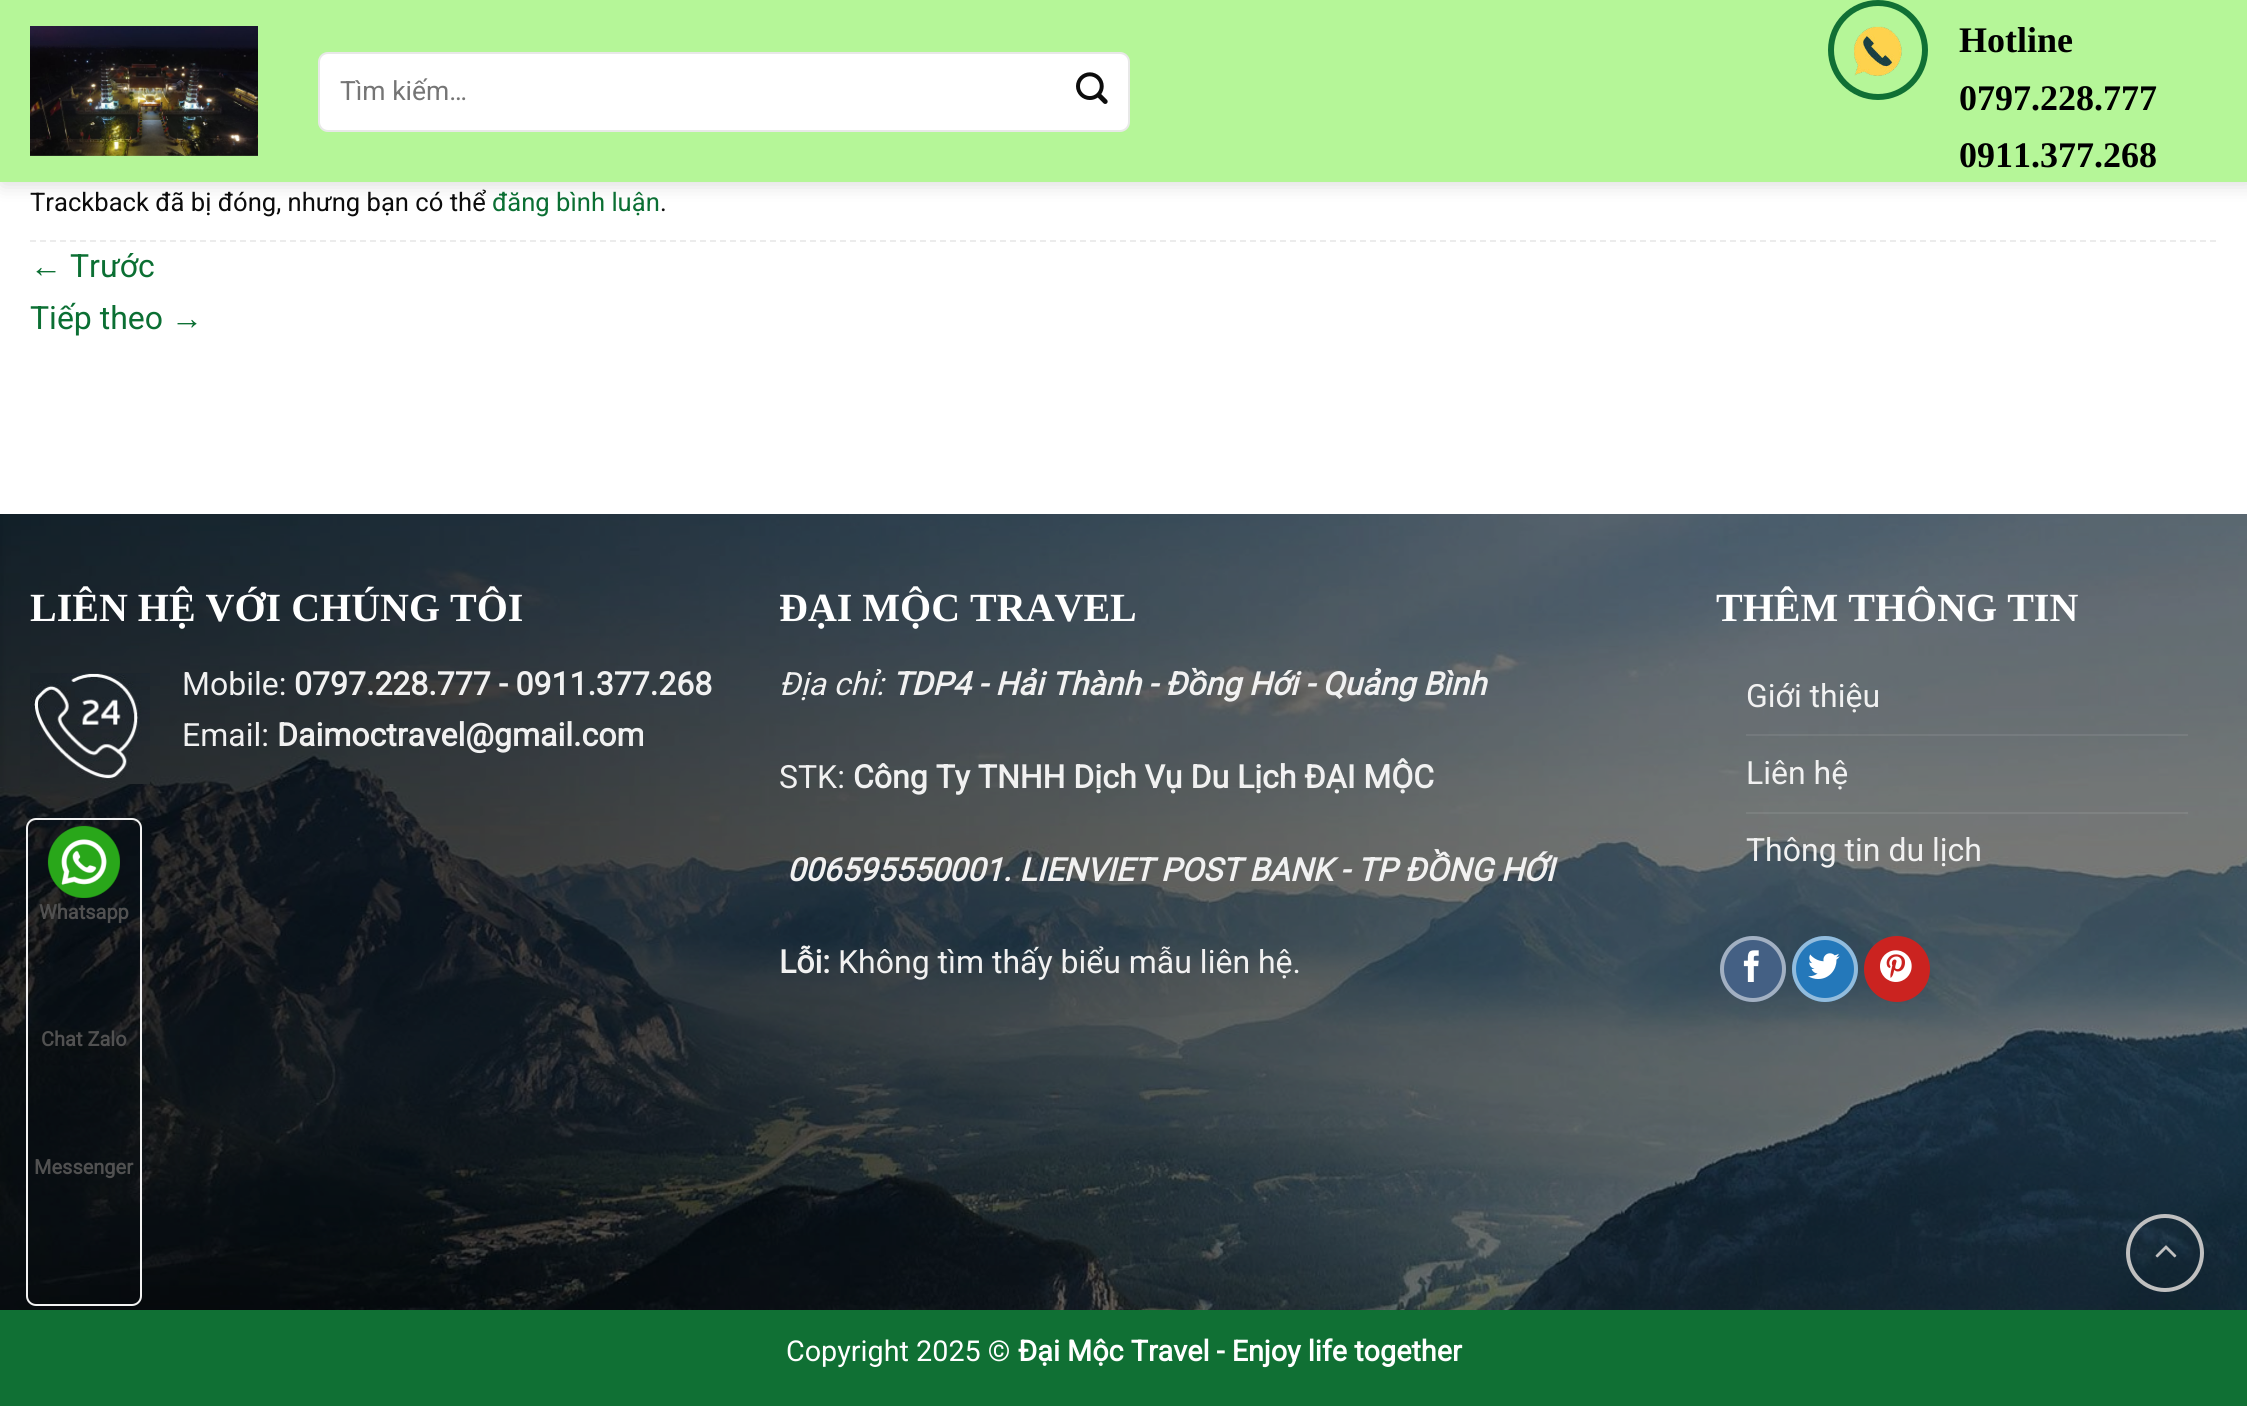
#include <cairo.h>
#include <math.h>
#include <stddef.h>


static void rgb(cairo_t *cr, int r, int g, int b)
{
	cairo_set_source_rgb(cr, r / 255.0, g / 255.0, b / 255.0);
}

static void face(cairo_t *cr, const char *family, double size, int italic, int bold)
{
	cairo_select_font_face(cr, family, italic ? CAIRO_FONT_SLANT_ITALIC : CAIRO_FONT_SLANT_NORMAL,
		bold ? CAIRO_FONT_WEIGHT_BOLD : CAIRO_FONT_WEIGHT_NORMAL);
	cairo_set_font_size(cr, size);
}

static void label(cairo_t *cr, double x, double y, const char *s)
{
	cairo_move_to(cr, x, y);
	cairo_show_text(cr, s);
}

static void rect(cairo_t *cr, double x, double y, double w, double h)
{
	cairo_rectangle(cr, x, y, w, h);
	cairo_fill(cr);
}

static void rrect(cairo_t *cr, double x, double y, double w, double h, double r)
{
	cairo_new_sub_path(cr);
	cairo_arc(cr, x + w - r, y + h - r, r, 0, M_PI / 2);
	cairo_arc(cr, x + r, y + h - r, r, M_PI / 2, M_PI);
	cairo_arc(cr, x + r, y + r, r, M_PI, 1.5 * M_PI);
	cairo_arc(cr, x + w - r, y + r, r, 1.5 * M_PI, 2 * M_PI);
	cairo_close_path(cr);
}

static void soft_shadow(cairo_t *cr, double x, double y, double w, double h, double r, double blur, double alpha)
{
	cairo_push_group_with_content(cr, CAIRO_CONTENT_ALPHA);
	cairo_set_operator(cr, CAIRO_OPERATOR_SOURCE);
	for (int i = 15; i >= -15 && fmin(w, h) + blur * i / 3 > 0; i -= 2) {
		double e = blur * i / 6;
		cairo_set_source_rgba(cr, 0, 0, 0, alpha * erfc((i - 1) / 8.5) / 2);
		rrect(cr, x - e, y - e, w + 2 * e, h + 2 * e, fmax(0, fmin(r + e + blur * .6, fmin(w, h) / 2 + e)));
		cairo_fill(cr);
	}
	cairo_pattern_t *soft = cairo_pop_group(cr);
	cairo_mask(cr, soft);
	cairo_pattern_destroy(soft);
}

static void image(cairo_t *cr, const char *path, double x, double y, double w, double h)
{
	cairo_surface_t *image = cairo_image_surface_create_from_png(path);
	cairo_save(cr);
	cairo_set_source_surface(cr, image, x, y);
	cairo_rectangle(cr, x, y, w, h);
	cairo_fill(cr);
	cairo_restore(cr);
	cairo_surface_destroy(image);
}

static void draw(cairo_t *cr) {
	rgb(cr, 255, 255, 255);
	cairo_paint(cr);
	rgb(cr, 0, 0, 0);
	soft_shadow(cr, 2, 2, 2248, 182, 0, 10, 0.15);
	rgb(cr, 181, 246, 152);
	rect(cr, 0, 0, 2247, 182);
	image(cr, "image0.png", 30, 26, 228, 130);
	rgb(cr, 255, 255, 255);
	rrect(cr, 318, 52, 812, 80, 10);
	cairo_fill(cr);
	rrect(cr, 319, 53, 810, 78, 9);
	cairo_set_source_rgba(cr, 0, 0, 0, 0.09);
	cairo_stroke(cr);
	face(cr, "Roboto", 26.5, 0, 0);
	rgb(cr, 117, 117, 117);
	label(cr, 340, 100, "Tìm kiếm…");
	image(cr, "image1.png", 1076, 72, 32, 32);
	cairo_arc(cr, 1878, 50, 47, 0, 2 * M_PI);
	rgb(cr, 16, 112, 52);
	cairo_set_line_width(cr, 6);
	cairo_stroke(cr);
	image(cr, "image2.png", 1854, 26, 48, 50);
	face(cr, "Liberation Serif", 36, 0, 1);
	rgb(cr, 0, 0, 0);
	label(cr, 1959, 52, "Hotline");
	label(cr, 1959, 110, "0797.228.777");
	label(cr, 1959, 167, "0911.377.268");
	cairo_new_path(cr);
	cairo_move_to(cr, 30, 241);
	cairo_line_to(cr, 2218, 241);
	rgb(cr, 236, 236, 236);
	cairo_set_line_width(cr, 2);
	cairo_set_dash(cr, (double[]){6, 4}, 2, 0);
	cairo_stroke(cr);
	face(cr, "Roboto", 25.6, 0, 0);
	rgb(cr, 12, 12, 12);
	label(cr, 30, 211, "Trackback đã bị đóng, nhưng bạn có thể");
	rgb(cr, 11, 111, 51);
	label(cr, 492, 211, "đăng bình luận");
	rgb(cr, 12, 12, 12);
	label(cr, 660, 211, ".");
	face(cr, "Liberation Sans", 32, 0, 0);
	rgb(cr, 11, 111, 51);
	label(cr, 30, 277, "←");
	face(cr, "Roboto", 32, 0, 0);
	label(cr, 70, 277, "Trước");
	label(cr, 30, 329, "Tiếp theo");
	face(cr, "Liberation Sans", 32, 0, 0);
	label(cr, 171, 329, "→");
	image(cr, "image3.png", 0, 514, 2247, 796);
	face(cr, "Liberation Serif", 40, 0, 1);
	rgb(cr, 255, 255, 255);
	label(cr, 30, 621, "LIÊN HỆ VỚI CHÚNG TÔI");
	image(cr, "image4.png", 30, 673, 120, 111);
	face(cr, "Roboto", 32, 0, 0);
	rgb(cr, 241, 241, 241);
	label(cr, 182, 695, "Mobile:");
	face(cr, "Roboto", 32, 0, 1);
	label(cr, 294, 695, "0797.228.777 - 0911.377.268");
	face(cr, "Roboto", 32, 0, 0);
	label(cr, 182, 746, "Email:");
	face(cr, "Roboto", 32, 0, 1);
	label(cr, 277, 746, "Daimoctravel@gmail.com");
	face(cr, "Liberation Serif", 40, 0, 1);
	rgb(cr, 255, 255, 255);
	label(cr, 779, 621, "ĐẠI MỘC TRAVEL");
	face(cr, "Roboto", 32, 1, 0);
	rgb(cr, 241, 241, 241);
	label(cr, 779, 695, "Địa chỉ:");
	face(cr, "Roboto", 32, 1, 1);
	label(cr, 892, 695, "TDP4 - Hải Thành - Đồng Hới - Quảng Bình");
	face(cr, "Roboto", 32, 0, 0);
	label(cr, 779, 788, "STK:");
	face(cr, "Roboto", 32, 0, 1);
	label(cr, 853, 788, "Công Ty TNHH Dịch Vụ Du Lịch ĐẠI MỘC");
	face(cr, "Roboto", 32, 1, 1);
	label(cr, 787, 881, "006595550001. LIENVIET POST BANK - TP ĐỒNG HỚI");
	face(cr, "Roboto", 32, 0, 1);
	label(cr, 779, 973, "Lỗi:");
	face(cr, "Roboto", 32, 0, 0);
	label(cr, 838, 973, "Không tìm thấy biểu mẫu liên hệ.");
	face(cr, "Liberation Serif", 40, 0, 1);
	rgb(cr, 255, 255, 255);
	label(cr, 1716, 621, "THÊM THÔNG TIN");
	face(cr, "Roboto", 32, 0, 0);
	rgb(cr, 241, 241, 241);
	label(cr, 1746, 707, "Giới thiệu");
	cairo_set_source_rgba(cr, 1, 1, 1, 0.08);
	rect(cr, 1746, 734, 442, 2);
	rgb(cr, 241, 241, 241);
	label(cr, 1746, 784, "Liên hệ");
	cairo_set_source_rgba(cr, 1, 1, 1, 0.08);
	rect(cr, 1746, 812, 442, 2);
	rgb(cr, 241, 241, 241);
	label(cr, 1746, 861, "Thông tin du lịch");
	rgb(cr, 68, 96, 132);
	cairo_new_path(cr);
	cairo_arc(cr, 1753, 969, 33, 0, 2 * M_PI);
	cairo_fill(cr);
	cairo_arc(cr, 1753, 969, 31, 0, 2 * M_PI);
	cairo_set_source_rgba(cr, 1, 1, 1, 0.5);
	cairo_set_line_width(cr, 4);
	cairo_set_dash(cr, NULL, 0, 0);
	cairo_stroke(cr);
	image(cr, "image5.png", 1743, 950, 16, 32);
	rgb(cr, 36, 120, 186);
	cairo_arc(cr, 1825, 969, 33, 0, 2 * M_PI);
	cairo_fill(cr);
	cairo_arc(cr, 1825, 969, 31, 0, 2 * M_PI);
	cairo_set_source_rgba(cr, 1, 1, 1, 0.5);
	cairo_stroke(cr);
	image(cr, "image6.png", 1808, 953, 32, 26);
	rgb(cr, 203, 35, 32);
	cairo_arc(cr, 1897, 969, 31, 0, 2 * M_PI);
	cairo_fill_preserve(cr);
	cairo_stroke(cr);
	image(cr, "image7.png", 1880, 950, 32, 32);
	cairo_arc(cr, 2165, 1253, 37, 0, 2 * M_PI);
	rgb(cr, 192, 192, 192);
	cairo_stroke(cr);
	image(cr, "image8.png", 2155, 1245, 22, 13);
	rgb(cr, 16, 112, 52);
	rect(cr, 0, 1310, 2247, 96);
	face(cr, "Roboto", 28.75, 0, 0);
	rgb(cr, 255, 255, 255);
	label(cr, 786, 1361, "Copyright 2025 ©");
	face(cr, "Roboto", 28.75, 0, 1);
	label(cr, 1018, 1361, "Đại Mộc Travel - Enjoy life together");
	rrect(cr, 27, 819, 114, 486, 9);
	rgb(cr, 242, 242, 242);
	cairo_set_line_width(cr, 2);
	cairo_stroke(cr);
	image(cr, "image9.png", 47, 825, 73, 73);
	face(cr, "Roboto", 20, 0, 1);
	rgb(cr, 81, 81, 81);
	label(cr, 39, 919, "Whatsapp");
	label(cr, 41, 1046, "Chat Zalo");
	label(cr, 34, 1174, "Messenger");
}

int main(void) {
	cairo_surface_t *surface = cairo_image_surface_create(CAIRO_FORMAT_RGB24, 2247, 1406);
	cairo_t *cr = cairo_create(surface);
	cairo_font_options_t *options = cairo_font_options_create();
	cairo_font_options_set_hint_metrics(options, CAIRO_HINT_METRICS_OFF);
	cairo_font_options_set_hint_style(options, CAIRO_HINT_STYLE_NONE);
	cairo_set_font_options(cr, options);
	cairo_set_miter_limit(cr, 4);
	draw(cr);
	cairo_surface_write_to_png(surface, "render.png");
	cairo_font_options_destroy(options);
	cairo_destroy(cr);
	cairo_surface_destroy(surface);
	return 0;
}
